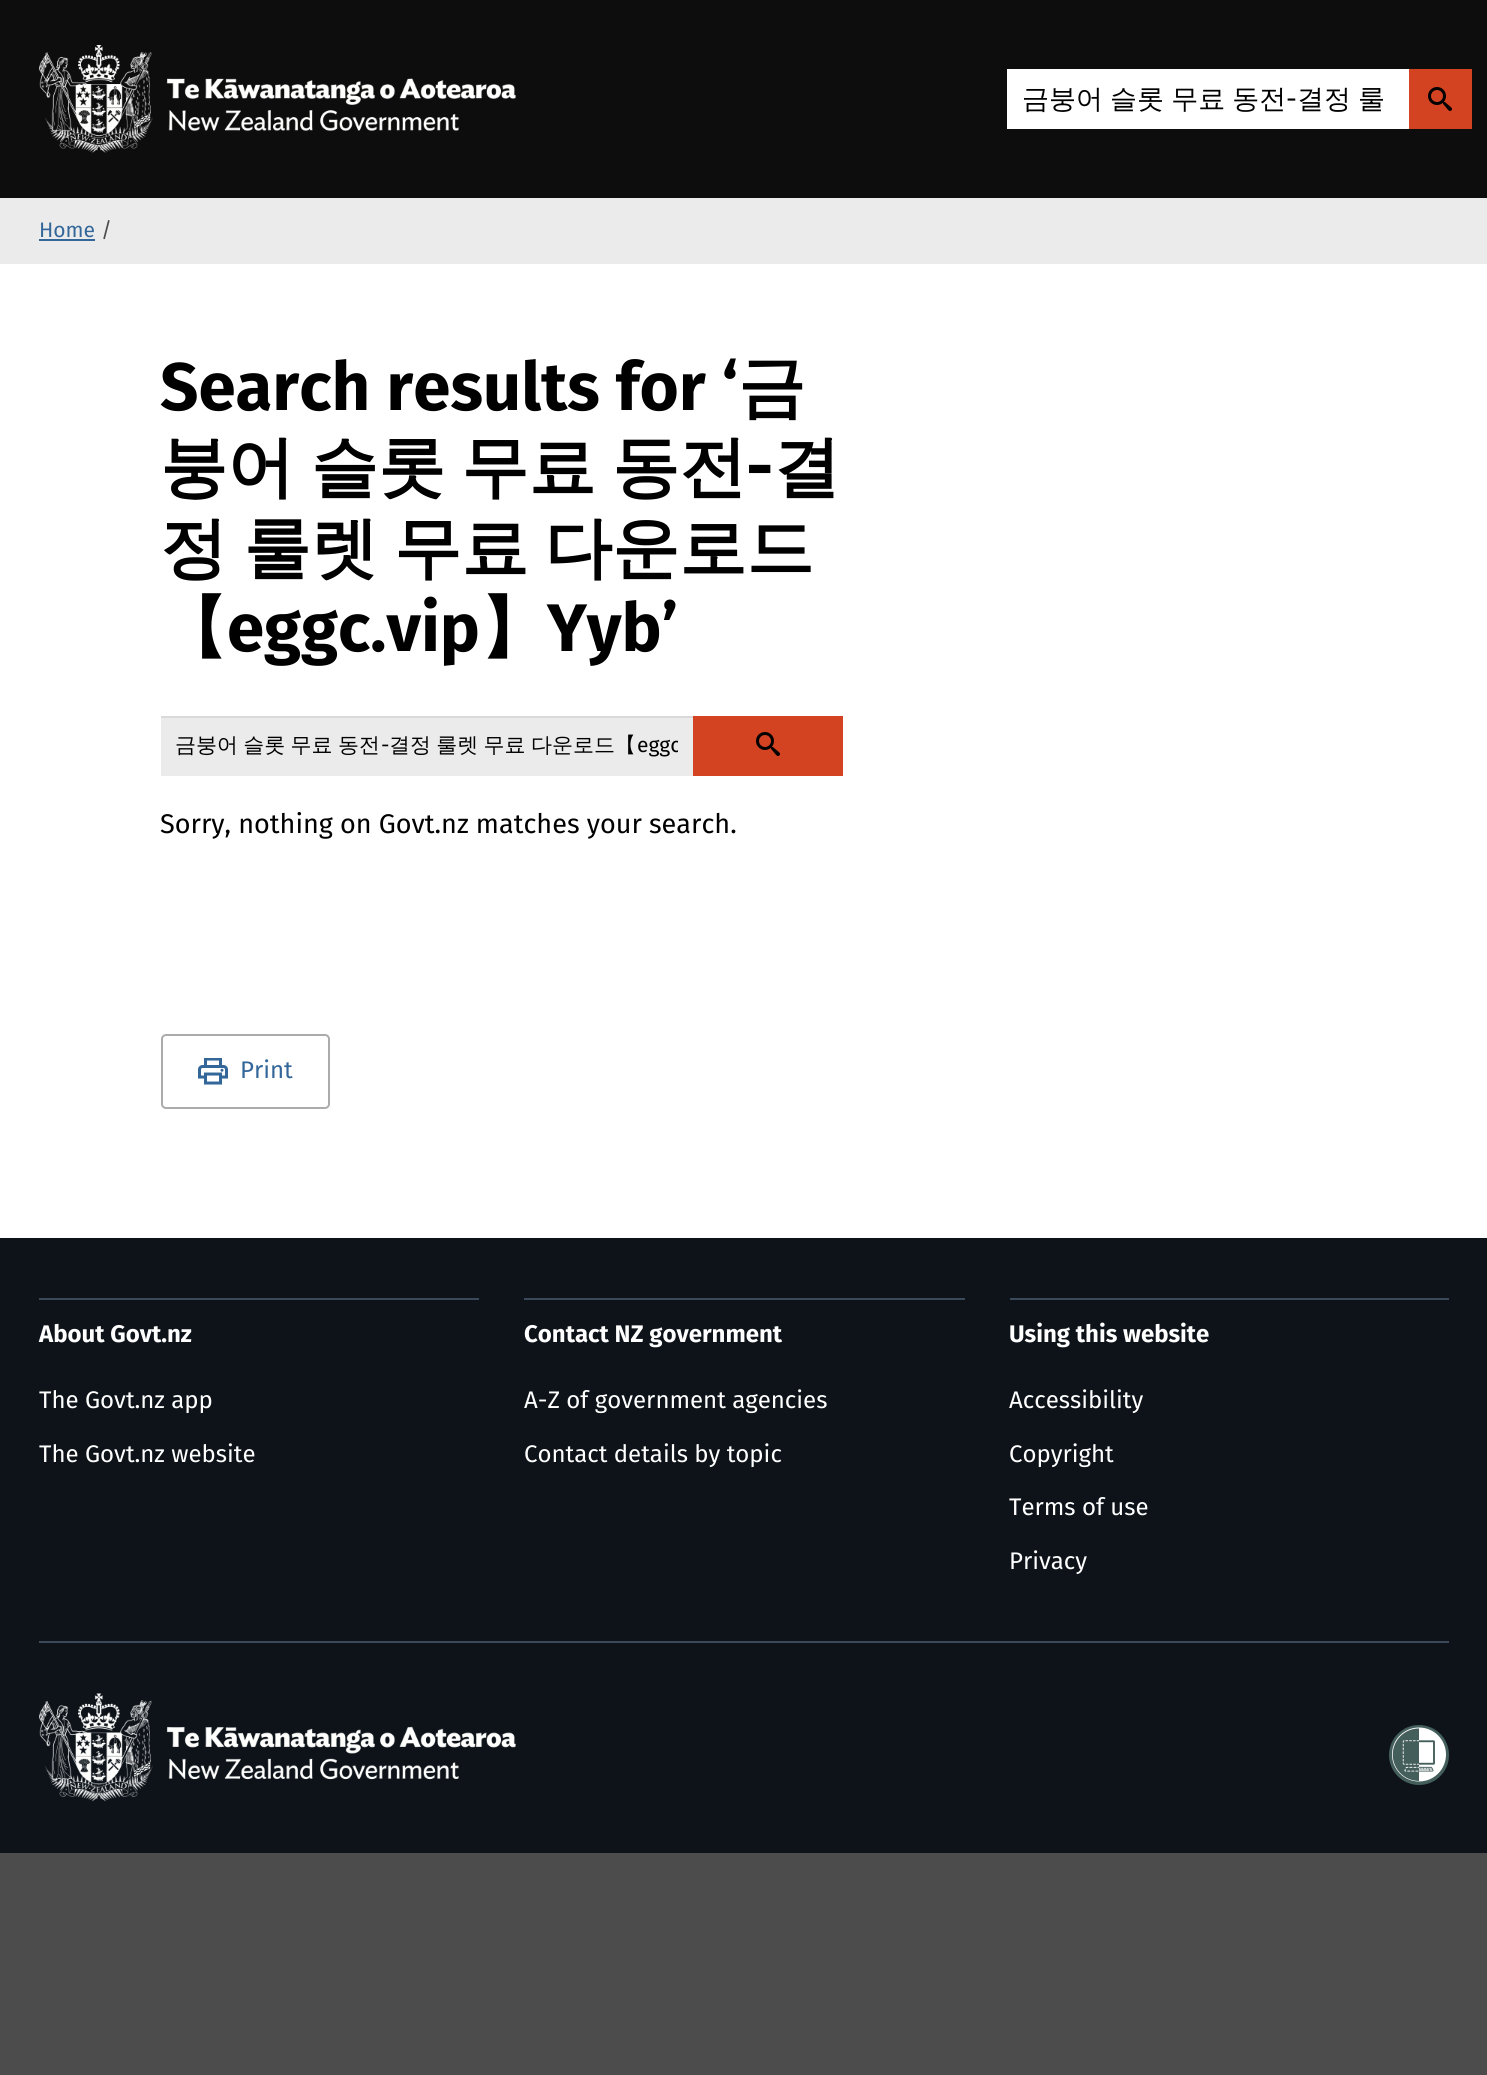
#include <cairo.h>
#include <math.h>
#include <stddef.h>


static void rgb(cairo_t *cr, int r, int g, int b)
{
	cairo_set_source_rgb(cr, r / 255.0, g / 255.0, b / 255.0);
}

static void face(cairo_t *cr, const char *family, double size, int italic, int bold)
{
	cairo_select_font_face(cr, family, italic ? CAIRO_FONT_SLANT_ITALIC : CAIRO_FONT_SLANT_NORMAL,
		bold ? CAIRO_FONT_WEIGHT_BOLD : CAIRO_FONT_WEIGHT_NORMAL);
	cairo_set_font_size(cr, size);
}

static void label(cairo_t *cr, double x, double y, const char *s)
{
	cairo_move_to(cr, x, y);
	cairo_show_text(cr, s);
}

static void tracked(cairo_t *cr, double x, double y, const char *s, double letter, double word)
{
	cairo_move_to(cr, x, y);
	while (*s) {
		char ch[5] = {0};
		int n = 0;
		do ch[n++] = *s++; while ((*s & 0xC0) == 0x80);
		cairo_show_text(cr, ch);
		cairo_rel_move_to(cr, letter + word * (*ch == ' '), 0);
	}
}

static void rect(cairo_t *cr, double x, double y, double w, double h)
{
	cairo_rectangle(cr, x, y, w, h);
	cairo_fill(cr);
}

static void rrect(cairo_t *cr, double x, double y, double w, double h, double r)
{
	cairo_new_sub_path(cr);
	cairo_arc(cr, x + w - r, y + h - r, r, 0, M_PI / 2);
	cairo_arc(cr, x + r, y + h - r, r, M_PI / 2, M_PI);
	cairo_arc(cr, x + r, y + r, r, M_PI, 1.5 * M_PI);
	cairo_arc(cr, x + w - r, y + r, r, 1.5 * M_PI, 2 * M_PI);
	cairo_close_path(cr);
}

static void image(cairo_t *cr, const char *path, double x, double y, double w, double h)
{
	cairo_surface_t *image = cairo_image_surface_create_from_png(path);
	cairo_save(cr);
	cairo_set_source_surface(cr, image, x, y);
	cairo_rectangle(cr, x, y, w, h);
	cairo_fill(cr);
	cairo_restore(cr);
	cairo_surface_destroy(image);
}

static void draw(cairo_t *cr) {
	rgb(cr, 76, 76, 76);
	cairo_paint(cr);
	rgb(cr, 13, 13, 13);
	rect(cr, 0, 0, 1487, 198);
	image(cr, "image0.png", 39, 45, 477, 108);
	rgb(cr, 255, 255, 255);
	rect(cr, 1007, 69, 402, 60);
	face(cr, "WenQuanYi Zen Hei Medium", 27, 0, 0);
	rgb(cr, 0, 0, 0);
	tracked(cr, 1022, 108, "금붕어 슬롯 무료 동전", 0, -1);
	face(cr, "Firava", 27, 0, 0);
	label(cr, 1286, 108, "-");
	face(cr, "WenQuanYi Zen Hei Medium", 27, 0, 0);
	tracked(cr, 1297, 108, "결정 룰", 0, -1);
	rgb(cr, 211, 67, 34);
	rect(cr, 1409, 69, 63, 60);
	image(cr, "image1.png", 1428, 87, 24, 24);
	rgb(cr, 255, 255, 255);
	rect(cr, 0, 264, 1487, 974);
	rgb(cr, 235, 235, 235);
	rect(cr, 0, 198, 1487, 66);
	face(cr, "Firava", 21, 0, 0);
	rgb(cr, 51, 102, 153);
	label(cr, 39, 237, "Home");
	rect(cr, 39, 239, 56, 2);
	rgb(cr, 76, 76, 76);
	label(cr, 101, 237, "/");
	face(cr, "Firava", 67.25, 0, 1);
	rgb(cr, 0, 0, 0);
	label(cr, 160, 410, "Search results for ‘");
	face(cr, "WenQuanYi Zen Hei", 67.25, 0, 1);
	label(cr, 738, 410, "금");
	tracked(cr, 160, 490, "붕어 슬롯 무료 동전", 0, -4);
	face(cr, "Firava", 67.25, 0, 1);
	label(cr, 746, 490, "-");
	face(cr, "WenQuanYi Zen Hei", 67.25, 0, 1);
	label(cr, 773, 490, "결");
	tracked(cr, 160, 571, "정 룰렛 무료 다운로드", 0, -4);
	label(cr, 160, 651, "【");
	face(cr, "Firava", 67.25, 0, 1);
	label(cr, 227, 651, "eggc.vip");
	face(cr, "WenQuanYi Zen Hei", 67.25, 0, 1);
	label(cr, 480, 651, "】");
	face(cr, "Firava", 67.25, 0, 1);
	label(cr, 547, 651, "Yyb’");
	rgb(cr, 235, 235, 235);
	rect(cr, 161, 718, 532, 58);
	rgb(cr, 217, 217, 217);
	rect(cr, 161, 716, 532, 2);
	face(cr, "WenQuanYi Zen Hei Medium", 21, 0, 0);
	rgb(cr, 0, 0, 0);
	tracked(cr, 175, 752, "금붕어 슬롯 무료 동전", 0, -1);
	face(cr, "Firava", 21, 0, 0);
	label(cr, 381, 752, "-");
	face(cr, "WenQuanYi Zen Hei Medium", 21, 0, 0);
	tracked(cr, 389, 752, "결정 룰렛 무료 다운로드【", 0, -1);
	cairo_save(cr);
	cairo_rectangle(cr, 176, 732, 502, 27);
	cairo_clip(cr);
	face(cr, "Firava", 21, 0, 0);
	label(cr, 637, 752, "eggc");
	cairo_restore(cr);
	rgb(cr, 211, 67, 34);
	rect(cr, 693, 716, 150, 60);
	image(cr, "image1.png", 756, 732, 24, 24);
	face(cr, "Firava", 27, 0, 0);
	rgb(cr, 0, 0, 0);
	label(cr, 160, 833, "Sorry, nothing on Govt.nz matches your search.");
	image(cr, "image2.png", 198, 1058, 30, 27);
	rrect(cr, 162, 1035, 167, 73, 4);
	rgb(cr, 171, 171, 171);
	cairo_stroke(cr);
	face(cr, "Firava", 24, 0, 0);
	rgb(cr, 51, 102, 153);
	label(cr, 240, 1078, "Print");
	rgb(cr, 13, 19, 25);
	rect(cr, 0, 1238, 1487, 615);
	rgb(cr, 58, 74, 90);
	rect(cr, 39, 1298, 440, 2);
	face(cr, "Firava", 24, 0, 1);
	rgb(cr, 255, 255, 255);
	label(cr, 39, 1342, "About Govt.nz");
	face(cr, "Firava", 24, 0, 0);
	label(cr, 39, 1408, "The Govt.nz app");
	label(cr, 39, 1462, "The Govt.nz website");
	rgb(cr, 58, 74, 90);
	rect(cr, 524, 1298, 441, 2);
	face(cr, "Firava", 24, 0, 1);
	rgb(cr, 255, 255, 255);
	label(cr, 524, 1342, "Contact NZ government");
	face(cr, "Firava", 24, 0, 0);
	label(cr, 524, 1408, "A-Z of government agencies");
	label(cr, 524, 1462, "Contact details by topic");
	rgb(cr, 58, 74, 90);
	rect(cr, 1010, 1298, 439, 2);
	face(cr, "Firava", 24, 0, 1);
	rgb(cr, 255, 255, 255);
	label(cr, 1009, 1342, "Using this website");
	face(cr, "Firava", 24, 0, 0);
	label(cr, 1009, 1408, "Accessibility");
	label(cr, 1009, 1462, "Copyright");
	label(cr, 1009, 1515, "Terms of use");
	label(cr, 1009, 1569, "Privacy");
	rgb(cr, 58, 74, 90);
	rect(cr, 39, 1641, 1410, 2);
	image(cr, "image3.png", 39, 1693, 477, 109);
	image(cr, "image4.png", 1389, 1725, 60, 60);
}

int main(void) {
	cairo_surface_t *surface = cairo_image_surface_create(CAIRO_FORMAT_RGB24, 1487, 2075);
	cairo_t *cr = cairo_create(surface);
	cairo_font_options_t *options = cairo_font_options_create();
	cairo_font_options_set_hint_metrics(options, CAIRO_HINT_METRICS_OFF);
	cairo_font_options_set_hint_style(options, CAIRO_HINT_STYLE_NONE);
	cairo_set_font_options(cr, options);
	cairo_set_miter_limit(cr, 4);
	draw(cr);
	cairo_surface_write_to_png(surface, "render.png");
	cairo_font_options_destroy(options);
	cairo_destroy(cr);
	cairo_surface_destroy(surface);
	return 0;
}
